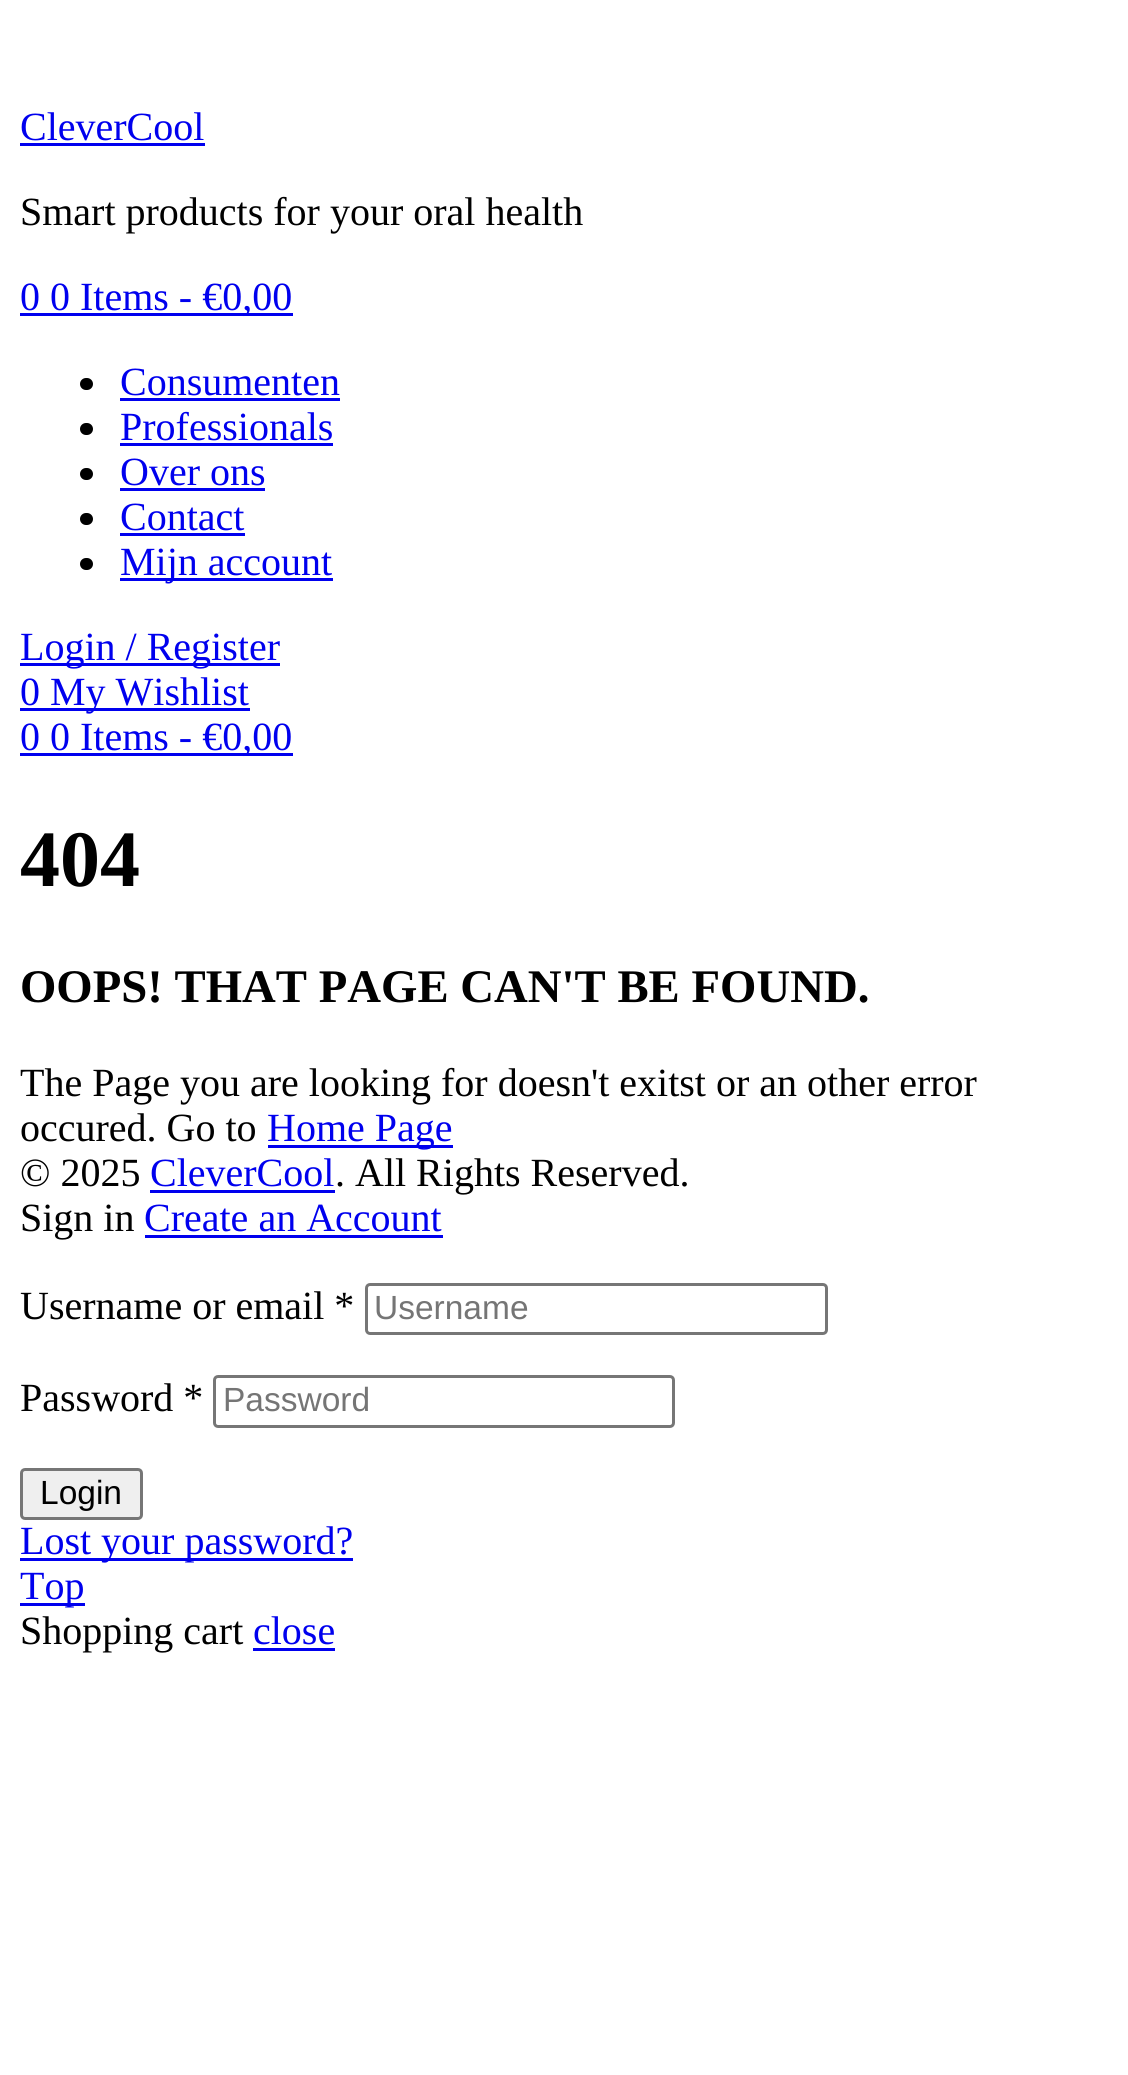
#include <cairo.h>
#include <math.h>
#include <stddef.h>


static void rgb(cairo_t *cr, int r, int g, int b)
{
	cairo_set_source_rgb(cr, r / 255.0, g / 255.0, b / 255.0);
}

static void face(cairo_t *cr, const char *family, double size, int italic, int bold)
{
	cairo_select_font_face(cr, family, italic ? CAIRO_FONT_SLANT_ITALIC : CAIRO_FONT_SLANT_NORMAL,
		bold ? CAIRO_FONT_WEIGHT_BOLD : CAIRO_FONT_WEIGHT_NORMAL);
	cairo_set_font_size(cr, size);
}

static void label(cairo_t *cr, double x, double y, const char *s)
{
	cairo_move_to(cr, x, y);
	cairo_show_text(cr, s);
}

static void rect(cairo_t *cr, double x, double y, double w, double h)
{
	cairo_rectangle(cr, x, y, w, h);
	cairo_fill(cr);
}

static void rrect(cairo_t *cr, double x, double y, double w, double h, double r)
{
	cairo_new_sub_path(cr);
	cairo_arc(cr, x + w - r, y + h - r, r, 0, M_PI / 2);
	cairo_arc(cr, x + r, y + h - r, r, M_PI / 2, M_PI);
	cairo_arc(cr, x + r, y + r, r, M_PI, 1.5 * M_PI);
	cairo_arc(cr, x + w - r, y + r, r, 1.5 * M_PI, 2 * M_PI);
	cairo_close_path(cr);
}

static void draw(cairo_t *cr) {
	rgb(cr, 255, 255, 255);
	cairo_paint(cr);
	face(cr, "Liberation Serif", 40, 0, 0);
	rgb(cr, 0, 0, 238);
	label(cr, 20, 140, "CleverCool");
	rect(cr, 20, 143, 185, 3);
	rgb(cr, 0, 0, 0);
	label(cr, 20, 225, "Smart products for your oral health");
	rgb(cr, 0, 0, 238);
	rect(cr, 20, 313, 273, 3);
	label(cr, 20, 310, "0 0 Items - €0,00");
	rgb(cr, 0, 0, 0);
	rrect(cr, 80, 378, 13, 12, 6);
	cairo_fill(cr);
	rgb(cr, 0, 0, 238);
	label(cr, 120, 395, "Consumenten");
	rect(cr, 120, 398, 220, 3);
	rgb(cr, 0, 0, 0);
	rrect(cr, 80, 423, 13, 12, 6);
	cairo_fill(cr);
	rgb(cr, 0, 0, 238);
	label(cr, 120, 440, "Professionals");
	rect(cr, 120, 443, 213, 3);
	rgb(cr, 0, 0, 0);
	rrect(cr, 80, 468, 13, 12, 6);
	cairo_fill(cr);
	rgb(cr, 0, 0, 238);
	label(cr, 120, 485, "Over ons");
	rect(cr, 120, 488, 145, 3);
	rgb(cr, 0, 0, 0);
	rrect(cr, 80, 513, 13, 12, 6);
	cairo_fill(cr);
	rgb(cr, 0, 0, 238);
	label(cr, 120, 530, "Contact");
	rect(cr, 120, 533, 125, 3);
	rgb(cr, 0, 0, 0);
	rrect(cr, 80, 558, 13, 12, 6);
	cairo_fill(cr);
	rgb(cr, 0, 0, 238);
	rect(cr, 120, 578, 213, 3);
	label(cr, 120, 575, "Mijn account");
	rect(cr, 20, 663, 260, 3);
	label(cr, 20, 660, "Login / Register");
	rect(cr, 20, 708, 230, 3);
	label(cr, 20, 705, "0 My Wishlist");
	rect(cr, 20, 753, 273, 3);
	label(cr, 20, 750, "0 0 Items - €0,00");
	face(cr, "Liberation Serif", 80, 0, 1);
	rgb(cr, 0, 0, 0);
	label(cr, 20, 886, "404");
	face(cr, "Liberation Serif", 46.75, 0, 1);
	label(cr, 20, 1002, "OOPS! THAT PAGE CAN'T BE FOUND.");
	face(cr, "Liberation Serif", 40, 0, 0);
	label(cr, 20, 1096, "The Page you are looking for doesn't exitst or an other error");
	label(cr, 20, 1141, "occured. Go to");
	rgb(cr, 0, 0, 238);
	rect(cr, 268, 1145, 185, 3);
	label(cr, 267, 1141, "Home Page");
	rgb(cr, 0, 0, 0);
	label(cr, 20, 1186, "© 2025");
	rgb(cr, 0, 0, 238);
	label(cr, 150, 1186, "CleverCool");
	rect(cr, 150, 1190, 185, 3);
	rgb(cr, 0, 0, 0);
	label(cr, 335, 1186, ". All Rights Reserved.");
	label(cr, 20, 1231, "Sign in");
	rgb(cr, 0, 0, 238);
	label(cr, 144, 1231, "Create an Account");
	rect(cr, 145, 1235, 298, 3);
	rgb(cr, 0, 0, 0);
	label(cr, 20, 1319, "Username or email *");
	rrect(cr, 366.5, 1284.5, 460, 49, 3.5);
	rgb(cr, 118, 118, 118);
	cairo_set_line_width(cr, 3);
	cairo_stroke(cr);
	face(cr, "Liberation Sans", 33.5, 0, 0);
	rgb(cr, 117, 117, 117);
	label(cr, 374, 1319, "Username");
	face(cr, "Liberation Serif", 40, 0, 0);
	rgb(cr, 0, 0, 0);
	label(cr, 20, 1411, "Password *");
	rrect(cr, 214.5, 1376.5, 459, 50, 3.5);
	rgb(cr, 118, 118, 118);
	cairo_stroke(cr);
	face(cr, "Liberation Sans", 33.5, 0, 0);
	rgb(cr, 117, 117, 117);
	label(cr, 223, 1411, "Password");
	rgb(cr, 239, 239, 239);
	rrect(cr, 21.5, 1469.5, 120, 49, 3.5);
	cairo_fill_preserve(cr);
	rgb(cr, 118, 118, 118);
	cairo_stroke(cr);
	rgb(cr, 0, 0, 0);
	label(cr, 40, 1504, "Login");
	rgb(cr, 0, 0, 238);
	rect(cr, 20, 1558, 333, 3);
	face(cr, "Liberation Serif", 40, 0, 0);
	label(cr, 20, 1554, "Lost your password?");
	rect(cr, 20, 1603, 65, 3);
	label(cr, 20, 1599, "Top");
	rgb(cr, 0, 0, 0);
	label(cr, 20, 1644, "Shopping cart");
	rgb(cr, 0, 0, 238);
	label(cr, 253, 1644, "close");
	rect(cr, 253, 1648, 82, 3);
}

int main(void) {
	cairo_surface_t *surface = cairo_image_surface_create(CAIRO_FORMAT_RGB24, 1128, 2075);
	cairo_t *cr = cairo_create(surface);
	cairo_font_options_t *options = cairo_font_options_create();
	cairo_font_options_set_hint_metrics(options, CAIRO_HINT_METRICS_OFF);
	cairo_font_options_set_hint_style(options, CAIRO_HINT_STYLE_NONE);
	cairo_set_font_options(cr, options);
	cairo_set_miter_limit(cr, 4);
	draw(cr);
	cairo_surface_write_to_png(surface, "render.png");
	cairo_font_options_destroy(options);
	cairo_destroy(cr);
	cairo_surface_destroy(surface);
	return 0;
}
